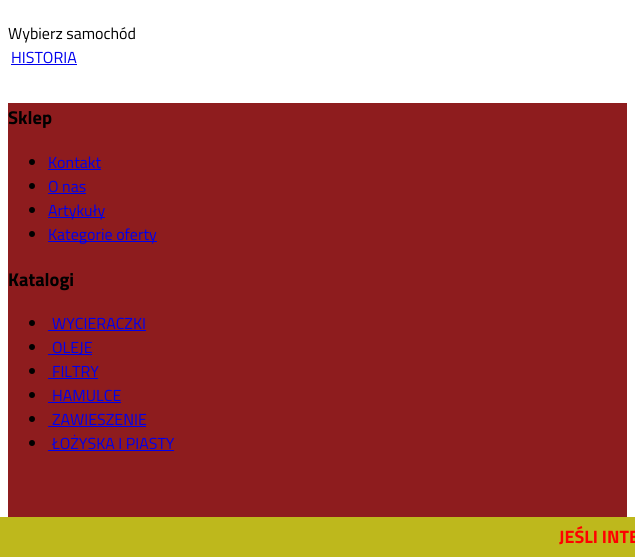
#include <cairo.h>
#include <math.h>
#include <stddef.h>


static void rgb(cairo_t *cr, int r, int g, int b)
{
	cairo_set_source_rgb(cr, r / 255.0, g / 255.0, b / 255.0);
}

static void face(cairo_t *cr, const char *family, double size, int italic, int bold)
{
	cairo_select_font_face(cr, family, italic ? CAIRO_FONT_SLANT_ITALIC : CAIRO_FONT_SLANT_NORMAL,
		bold ? CAIRO_FONT_WEIGHT_BOLD : CAIRO_FONT_WEIGHT_NORMAL);
	cairo_set_font_size(cr, size);
}

static void label(cairo_t *cr, double x, double y, const char *s)
{
	cairo_move_to(cr, x, y);
	cairo_show_text(cr, s);
}

static void rect(cairo_t *cr, double x, double y, double w, double h)
{
	cairo_rectangle(cr, x, y, w, h);
	cairo_fill(cr);
}

static void draw(cairo_t *cr) {
	rgb(cr, 255, 255, 255);
	cairo_paint(cr);
	face(cr, "Titillium Web", 16, 0, 0);
	rgb(cr, 0, 0, 0);
	label(cr, 8, 39, "Wybierz samochód");
	rgb(cr, 0, 0, 238);
	label(cr, 11, 63, "HISTORIA");
	rect(cr, 11, 64, 66, 1);
	rgb(cr, 142, 28, 30);
	rect(cr, 8, 103, 619, 414);
	face(cr, "Titillium Web", 18.5, 0, 1);
	rgb(cr, 0, 0, 0);
	label(cr, 8, 124, "Sklep");
	cairo_new_path(cr);
	cairo_arc(cr, 32, 162, 3, 0, 2 * M_PI);
	cairo_fill(cr);
	face(cr, "Titillium Web", 16, 0, 0);
	rgb(cr, 0, 0, 238);
	label(cr, 48, 168, "Kontakt");
	rect(cr, 48, 169, 53, 1);
	rgb(cr, 0, 0, 0);
	cairo_new_path(cr);
	cairo_arc(cr, 32, 186, 3, 0, 2 * M_PI);
	cairo_fill(cr);
	rgb(cr, 0, 0, 238);
	label(cr, 48, 192, "O nas");
	rect(cr, 48, 193, 38, 1);
	rgb(cr, 0, 0, 0);
	cairo_new_path(cr);
	cairo_arc(cr, 32, 210, 3, 0, 2 * M_PI);
	cairo_fill(cr);
	rgb(cr, 0, 0, 238);
	rect(cr, 48, 217, 57, 1);
	label(cr, 48, 216, "Artykuły");
	rgb(cr, 0, 0, 0);
	cairo_new_path(cr);
	cairo_arc(cr, 32, 234, 3, 0, 2 * M_PI);
	cairo_fill(cr);
	rgb(cr, 0, 0, 238);
	rect(cr, 48, 241, 109, 1);
	label(cr, 48, 240, "Kategorie oferty");
	face(cr, "Titillium Web", 18.5, 0, 1);
	rgb(cr, 0, 0, 0);
	label(cr, 8, 286, "Katalogi");
	cairo_new_path(cr);
	cairo_arc(cr, 32, 323, 3, 0, 2 * M_PI);
	cairo_fill(cr);
	face(cr, "Titillium Web", 16, 0, 0);
	rgb(cr, 0, 0, 238);
	label(cr, 52, 329, "WYCIERACZKI");
	rect(cr, 48, 330, 98, 1);
	rgb(cr, 0, 0, 0);
	cairo_new_path(cr);
	cairo_arc(cr, 32, 347, 3, 0, 2 * M_PI);
	cairo_fill(cr);
	rgb(cr, 0, 0, 238);
	rect(cr, 48, 354, 44, 1);
	label(cr, 52, 353, "OLEJE");
	rgb(cr, 0, 0, 0);
	cairo_new_path(cr);
	cairo_arc(cr, 32, 371, 3, 0, 2 * M_PI);
	cairo_fill(cr);
	rgb(cr, 0, 0, 238);
	label(cr, 52, 377, "FILTRY");
	rect(cr, 48, 378, 50, 1);
	rgb(cr, 0, 0, 0);
	cairo_new_path(cr);
	cairo_arc(cr, 32, 395, 3, 0, 2 * M_PI);
	cairo_fill(cr);
	rgb(cr, 0, 0, 238);
	label(cr, 52, 401, "HAMULCE");
	rect(cr, 48, 402, 73, 1);
	rgb(cr, 0, 0, 0);
	cairo_new_path(cr);
	cairo_arc(cr, 32, 419, 3, 0, 2 * M_PI);
	cairo_fill(cr);
	rgb(cr, 0, 0, 238);
	label(cr, 52, 425, "ZAWIESZENIE");
	rect(cr, 48, 426, 98, 1);
	rgb(cr, 0, 0, 0);
	cairo_new_path(cr);
	cairo_arc(cr, 32, 443, 3, 0, 2 * M_PI);
	cairo_fill(cr);
	rgb(cr, 0, 0, 238);
	label(cr, 52, 449, "ŁOŻYSKA I PIASTY");
	rect(cr, 48, 450, 126, 1);
	rgb(cr, 190, 184, 28);
	rect(cr, 0, 517, 635, 40);
	face(cr, "Titillium Web", 18, 0, 1);
	rgb(cr, 255, 0, 0);
	label(cr, 559, 543, "JEŚLI INTE");
}

int main(void) {
	cairo_surface_t *surface = cairo_image_surface_create(CAIRO_FORMAT_RGB24, 635, 557);
	cairo_t *cr = cairo_create(surface);
	cairo_font_options_t *options = cairo_font_options_create();
	cairo_font_options_set_hint_metrics(options, CAIRO_HINT_METRICS_OFF);
	cairo_font_options_set_hint_style(options, CAIRO_HINT_STYLE_NONE);
	cairo_set_font_options(cr, options);
	cairo_set_miter_limit(cr, 4);
	draw(cr);
	cairo_surface_write_to_png(surface, "render.png");
	cairo_font_options_destroy(options);
	cairo_destroy(cr);
	cairo_surface_destroy(surface);
	return 0;
}
